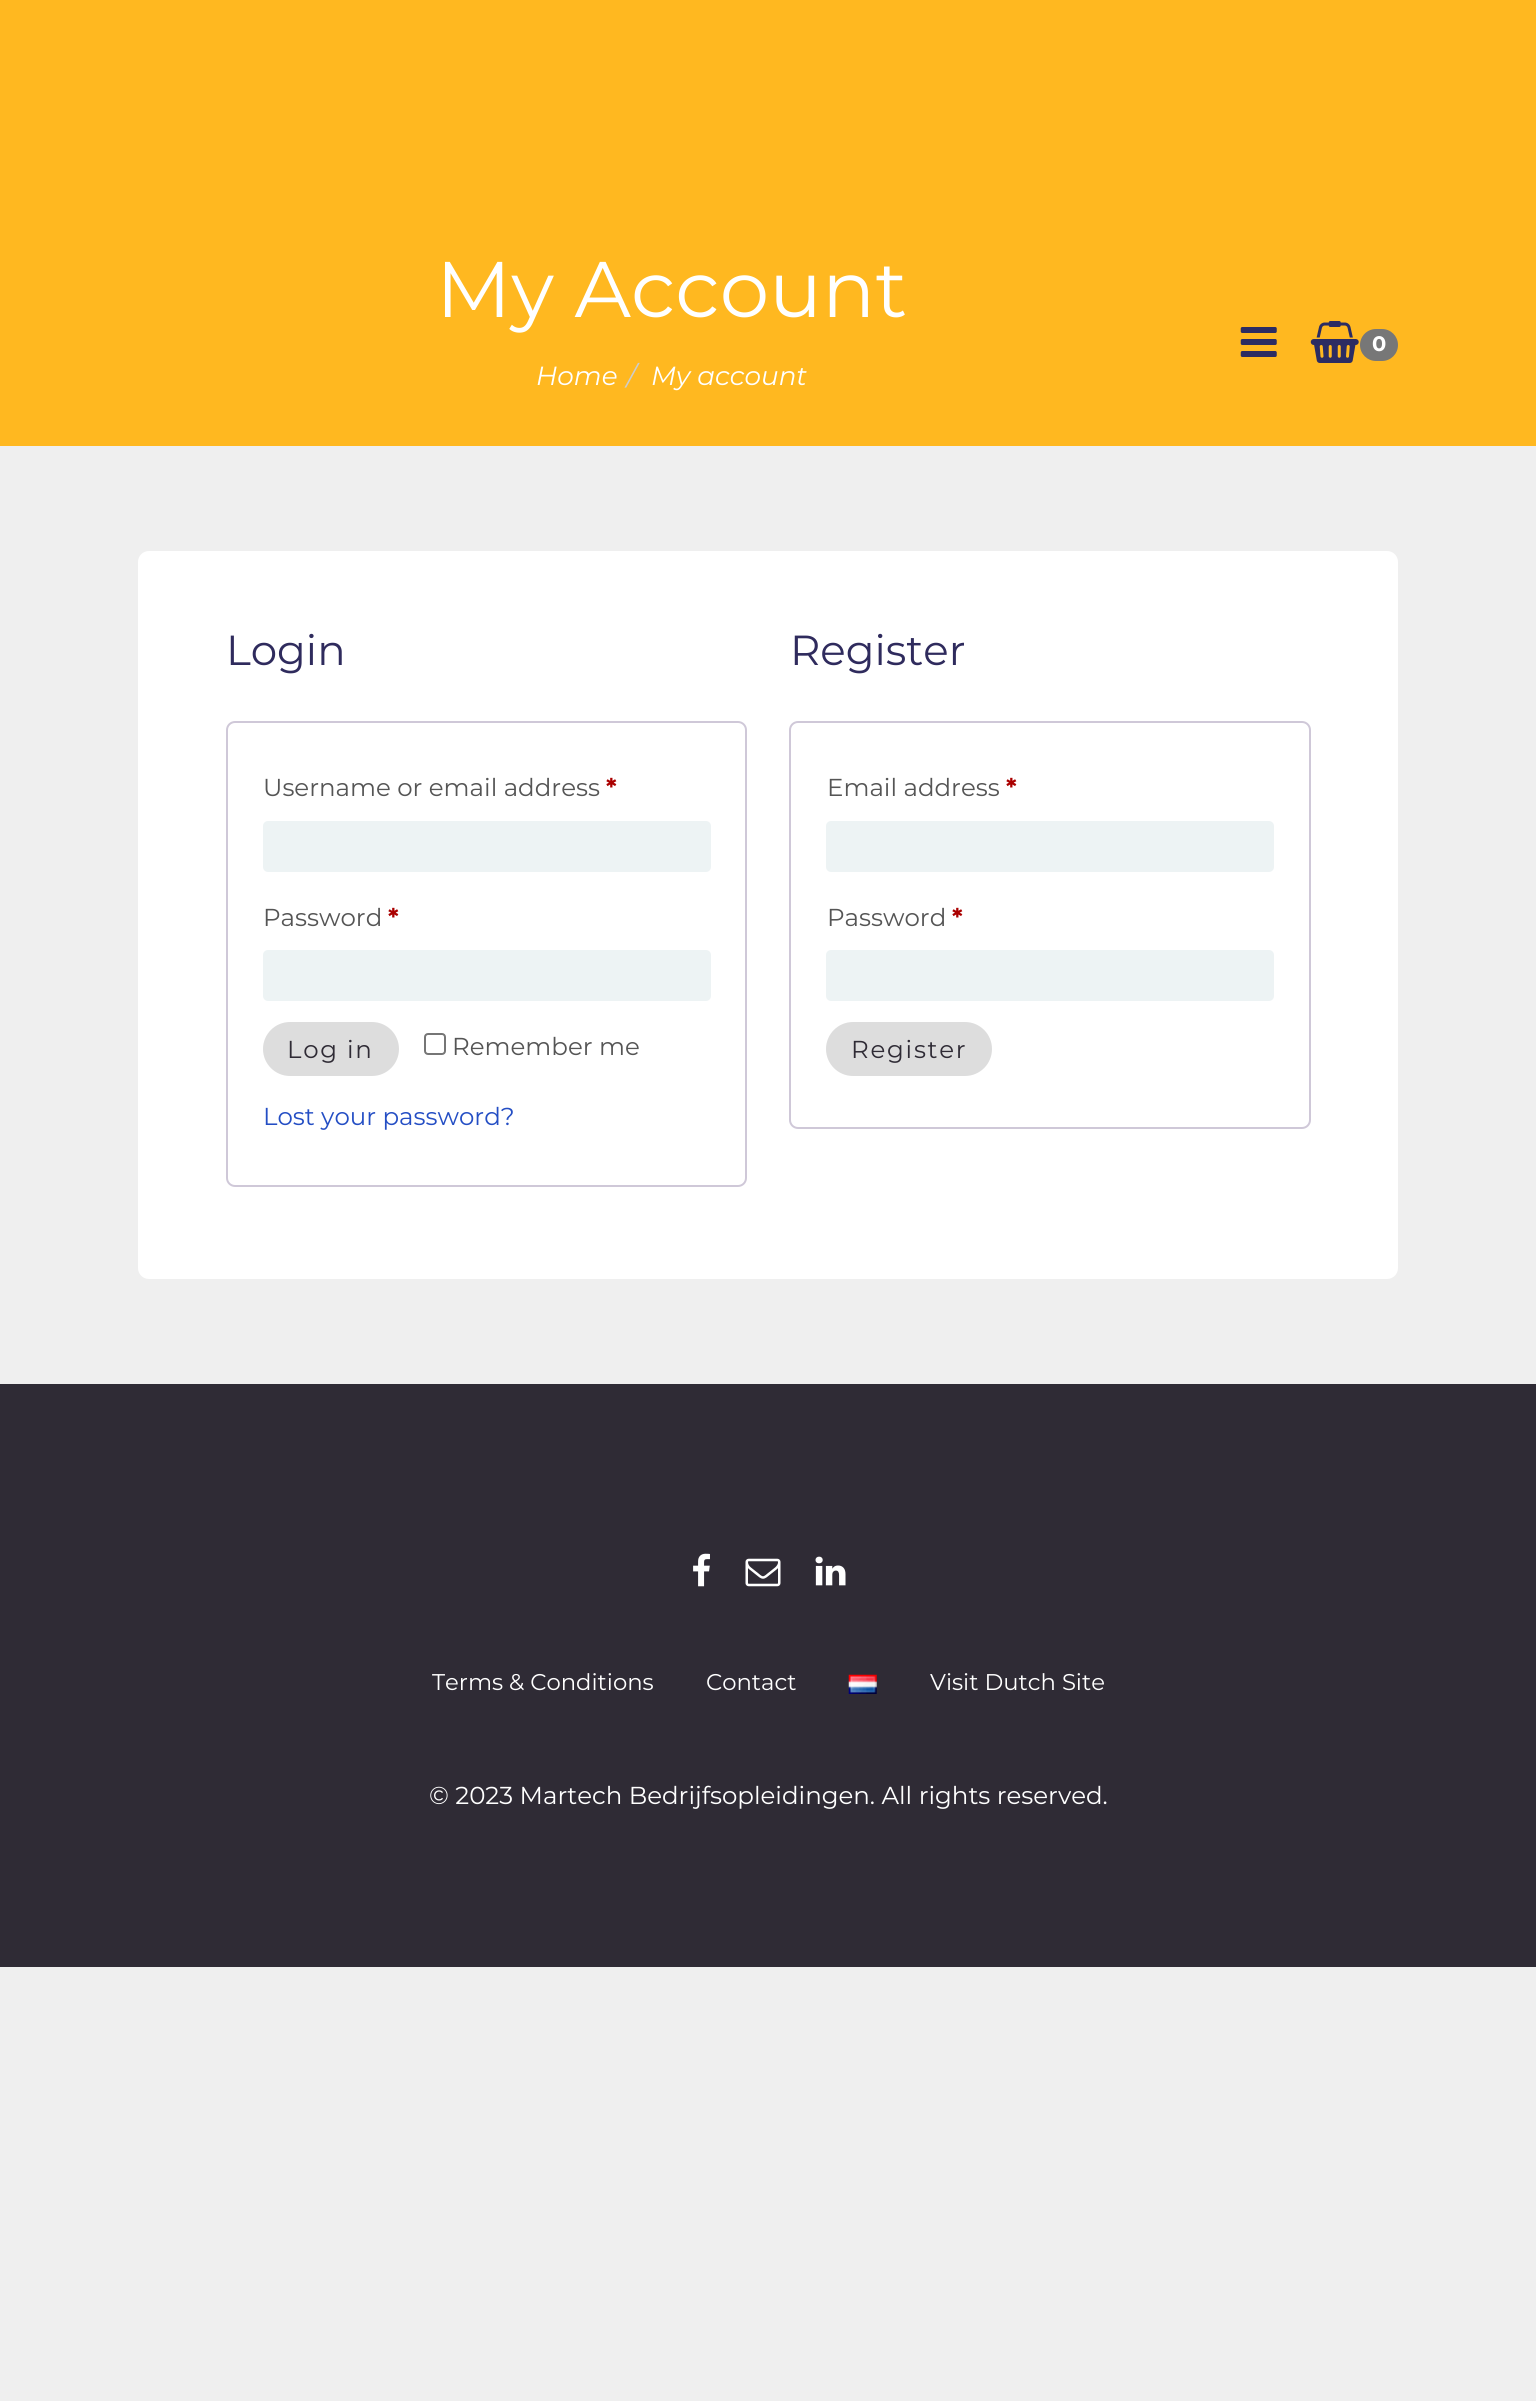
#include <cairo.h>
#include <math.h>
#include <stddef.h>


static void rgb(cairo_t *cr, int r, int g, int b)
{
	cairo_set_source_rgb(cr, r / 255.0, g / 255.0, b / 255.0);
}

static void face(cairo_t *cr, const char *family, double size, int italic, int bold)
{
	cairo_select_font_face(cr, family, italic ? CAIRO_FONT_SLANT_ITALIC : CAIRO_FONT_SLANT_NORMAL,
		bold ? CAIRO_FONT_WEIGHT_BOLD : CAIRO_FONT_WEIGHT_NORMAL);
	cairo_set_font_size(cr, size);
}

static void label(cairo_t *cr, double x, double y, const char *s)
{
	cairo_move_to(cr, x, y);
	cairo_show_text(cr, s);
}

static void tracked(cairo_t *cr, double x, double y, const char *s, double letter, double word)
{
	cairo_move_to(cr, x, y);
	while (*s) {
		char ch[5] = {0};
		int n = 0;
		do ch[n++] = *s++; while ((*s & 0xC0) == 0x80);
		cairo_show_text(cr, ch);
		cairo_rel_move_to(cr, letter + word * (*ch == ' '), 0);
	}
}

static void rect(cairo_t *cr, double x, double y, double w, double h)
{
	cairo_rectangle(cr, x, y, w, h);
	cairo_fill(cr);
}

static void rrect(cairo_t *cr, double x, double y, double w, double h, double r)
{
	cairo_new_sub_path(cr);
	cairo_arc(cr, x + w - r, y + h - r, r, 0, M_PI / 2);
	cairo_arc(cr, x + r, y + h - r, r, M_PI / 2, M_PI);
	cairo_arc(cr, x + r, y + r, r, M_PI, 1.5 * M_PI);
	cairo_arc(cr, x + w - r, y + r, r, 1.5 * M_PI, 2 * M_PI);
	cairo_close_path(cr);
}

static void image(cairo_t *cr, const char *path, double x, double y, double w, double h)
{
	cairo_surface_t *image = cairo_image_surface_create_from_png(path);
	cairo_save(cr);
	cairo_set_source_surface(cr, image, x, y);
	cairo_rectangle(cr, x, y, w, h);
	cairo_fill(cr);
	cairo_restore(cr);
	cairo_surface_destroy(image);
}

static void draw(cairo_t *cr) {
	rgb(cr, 239, 239, 239);
	cairo_paint(cr);
	rgb(cr, 255, 184, 32);
	rect(cr, 0, 0, 1536, 446);
	face(cr, "Montserrat", 78.75, 0, 0);
	rgb(cr, 255, 255, 255);
	label(cr, 436, 317, "My Account");
	face(cr, "Montserrat", 26.25, 1, 0);
	label(cr, 536, 385, "Home");
	rgb(cr, 204, 204, 204);
	label(cr, 627, 385, "/");
	rgb(cr, 255, 255, 255);
	label(cr, 651, 385, "My account");
	image(cr, "image0.png", 1240, 327, 37, 30);
	image(cr, "image1.png", 1310, 321, 49, 42);
	rgb(cr, 119, 119, 119);
	rrect(cr, 1360, 329, 38, 32, 16);
	cairo_fill(cr);
	face(cr, "Montserrat", 21, 0, 1);
	rgb(cr, 255, 255, 255);
	label(cr, 1372, 351, "0");
	rrect(cr, 138, 551, 1260, 728, 11);
	cairo_fill(cr);
	face(cr, "Montserrat", 42, 0, 0);
	rgb(cr, 47, 43, 93);
	label(cr, 226, 665, "Login");
	rrect(cr, 227, 722, 519, 464, 8);
	rgb(cr, 207, 200, 216);
	cairo_stroke(cr);
	face(cr, "Montserrat", 24.5, 0, 0);
	rgb(cr, 85, 85, 85);
	label(cr, 263, 796, "Username or email address");
	face(cr, "Montserrat", 24.5, 0, 1);
	rgb(cr, 170, 0, 0);
	label(cr, 606, 796, "*");
	rgb(cr, 237, 243, 244);
	rrect(cr, 263, 821, 448, 51, 5);
	cairo_fill(cr);
	face(cr, "Montserrat", 24.5, 0, 0);
	rgb(cr, 85, 85, 85);
	label(cr, 263, 926, "Password");
	face(cr, "Montserrat", 24.5, 0, 1);
	rgb(cr, 170, 0, 0);
	label(cr, 388, 926, "*");
	rgb(cr, 237, 243, 244);
	rrect(cr, 263, 950, 448, 51, 5);
	cairo_fill(cr);
	rgb(cr, 221, 221, 221);
	rrect(cr, 263, 1022, 136, 54, 27);
	cairo_fill(cr);
	face(cr, "Montserrat", 24.5, 0, 0);
	rgb(cr, 47, 43, 53);
	tracked(cr, 287, 1058, "Log in", 1.75, 0);
	rrect(cr, 425, 1034, 20, 20, 3);
	rgb(cr, 118, 118, 118);
	cairo_stroke(cr);
	rgb(cr, 85, 85, 85);
	label(cr, 452, 1055, "Remember me");
	rgb(cr, 36, 78, 196);
	label(cr, 263, 1125, "Lost your password?");
	face(cr, "Montserrat", 42, 0, 0);
	rgb(cr, 47, 43, 93);
	label(cr, 790, 665, "Register");
	rrect(cr, 790, 722, 520, 406, 8);
	rgb(cr, 207, 200, 216);
	cairo_stroke(cr);
	face(cr, "Montserrat", 24.5, 0, 0);
	rgb(cr, 85, 85, 85);
	label(cr, 827, 796, "Email address");
	face(cr, "Montserrat", 24.5, 0, 1);
	rgb(cr, 170, 0, 0);
	label(cr, 1006, 796, "*");
	rgb(cr, 237, 243, 244);
	rrect(cr, 826, 821, 448, 51, 5);
	cairo_fill(cr);
	face(cr, "Montserrat", 24.5, 0, 0);
	rgb(cr, 85, 85, 85);
	label(cr, 827, 926, "Password");
	face(cr, "Montserrat", 24.5, 0, 1);
	rgb(cr, 170, 0, 0);
	label(cr, 952, 926, "*");
	rgb(cr, 237, 243, 244);
	rrect(cr, 826, 950, 448, 51, 5);
	cairo_fill(cr);
	rgb(cr, 221, 221, 221);
	rrect(cr, 826, 1022, 166, 54, 27);
	cairo_fill(cr);
	face(cr, "Montserrat", 24.5, 0, 0);
	rgb(cr, 47, 43, 53);
	tracked(cr, 851, 1058, "Register", 1.75, 0);
	rect(cr, 0, 1384, 1536, 583);
	image(cr, "image2.png", 693, 1553, 17, 34);
	image(cr, "image3.png", 745, 1558, 36, 29);
	image(cr, "image4.png", 815, 1556, 31, 30);
	face(cr, "Montserrat", 22.75, 0, 0);
	rgb(cr, 255, 255, 255);
	label(cr, 432, 1690, "Terms & Conditions");
	label(cr, 706, 1690, "Contact");
	image(cr, "image5.png", 848, 1674, 29, 20);
	label(cr, 930, 1690, "Visit Dutch Site");
	face(cr, "Montserrat", 24.5, 0, 0);
	label(cr, 429, 1804, "© 2023 Martech Bedrijfsopleidingen. All rights reserved.");
}

int main(void) {
	cairo_surface_t *surface = cairo_image_surface_create(CAIRO_FORMAT_RGB24, 1536, 2401);
	cairo_t *cr = cairo_create(surface);
	cairo_font_options_t *options = cairo_font_options_create();
	cairo_font_options_set_hint_metrics(options, CAIRO_HINT_METRICS_OFF);
	cairo_font_options_set_hint_style(options, CAIRO_HINT_STYLE_NONE);
	cairo_set_font_options(cr, options);
	cairo_set_miter_limit(cr, 4);
	draw(cr);
	cairo_surface_write_to_png(surface, "render.png");
	cairo_font_options_destroy(options);
	cairo_destroy(cr);
	cairo_surface_destroy(surface);
	return 0;
}
